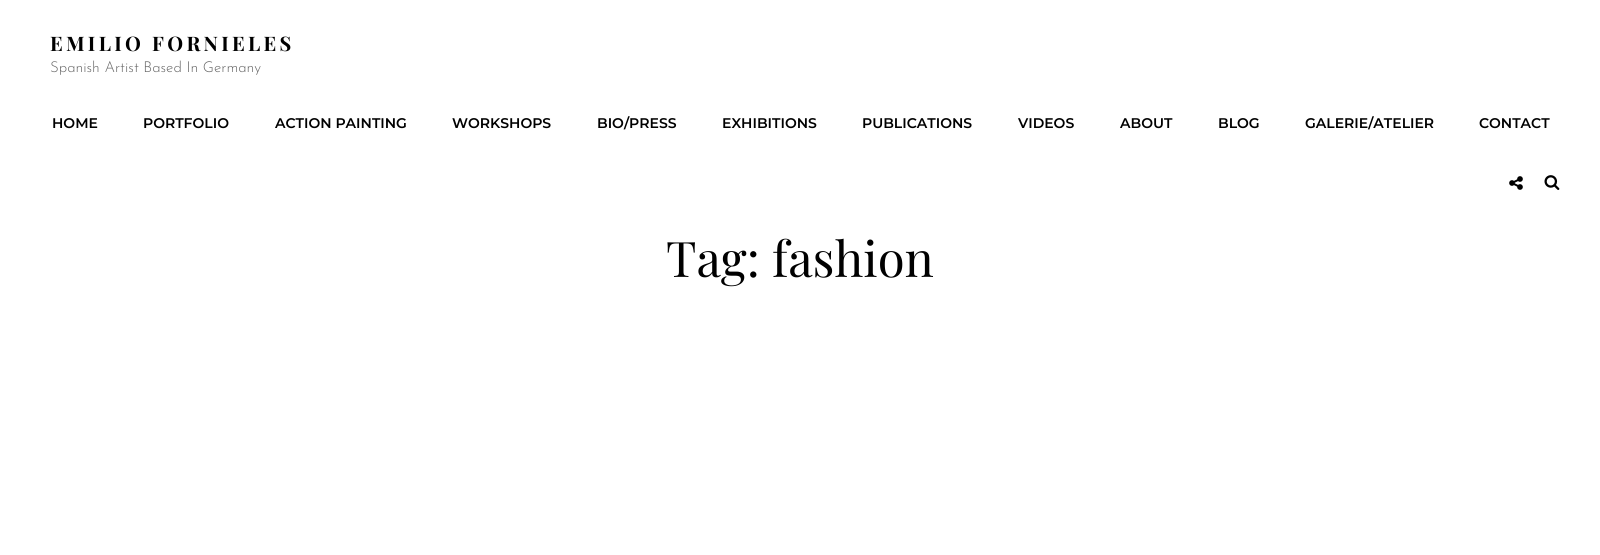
#include <cairo.h>
#include <math.h>
#include <stddef.h>


static void rgb(cairo_t *cr, int r, int g, int b)
{
	cairo_set_source_rgb(cr, r / 255.0, g / 255.0, b / 255.0);
}

static void face(cairo_t *cr, const char *family, double size, int italic, int bold)
{
	cairo_select_font_face(cr, family, italic ? CAIRO_FONT_SLANT_ITALIC : CAIRO_FONT_SLANT_NORMAL,
		bold ? CAIRO_FONT_WEIGHT_BOLD : CAIRO_FONT_WEIGHT_NORMAL);
	cairo_set_font_size(cr, size);
}

static void label(cairo_t *cr, double x, double y, const char *s)
{
	cairo_move_to(cr, x, y);
	cairo_show_text(cr, s);
}

static void tracked(cairo_t *cr, double x, double y, const char *s, double letter, double word)
{
	cairo_move_to(cr, x, y);
	while (*s) {
		char ch[5] = {0};
		int n = 0;
		do ch[n++] = *s++; while ((*s & 0xC0) == 0x80);
		cairo_show_text(cr, ch);
		cairo_rel_move_to(cr, letter + word * (*ch == ' '), 0);
	}
}

static void image(cairo_t *cr, const char *path, double x, double y, double w, double h)
{
	cairo_surface_t *image = cairo_image_surface_create_from_png(path);
	cairo_save(cr);
	cairo_set_source_surface(cr, image, x, y);
	cairo_rectangle(cr, x, y, w, h);
	cairo_fill(cr);
	cairo_restore(cr);
	cairo_surface_destroy(image);
}

static void draw(cairo_t *cr) {
	rgb(cr, 255, 255, 255);
	cairo_paint(cr);
	face(cr, "Playfair Display", 20, 0, 1);
	rgb(cr, 0, 0, 0);
	tracked(cr, 50, 51, "EMILIO FORNIELES", 3.3, 0);
	face(cr, "Josefin Sans Light", 15, 0, 0);
	rgb(cr, 102, 102, 102);
	label(cr, 50, 72, "Spanish Artist Based In Germany");
	face(cr, "Montserrat SemiBold", 14, 0, 0);
	rgb(cr, 0, 0, 0);
	label(cr, 52, 128, "HOME");
	label(cr, 143, 128, "PORTFOLIO");
	label(cr, 275, 128, "ACTION PAINTING");
	label(cr, 452, 128, "WORKSHOPS");
	label(cr, 597, 128, "BIO/PRESS");
	label(cr, 722, 128, "EXHIBITIONS");
	label(cr, 862, 128, "PUBLICATIONS");
	label(cr, 1018, 128, "VIDEOS");
	label(cr, 1120, 128, "ABOUT");
	label(cr, 1218, 128, "BLOG");
	label(cr, 1305, 128, "GALERIE/ATELIER");
	label(cr, 1479, 128, "CONTACT");
	image(cr, "image0.png", 1509, 176, 14, 14);
	image(cr, "image1.png", 1544, 175, 16, 15);
	face(cr, "Playfair Display", 49, 0, 0);
	label(cr, 666, 277, "Tag: fashion");
}

int main(void) {
	cairo_surface_t *surface = cairo_image_surface_create(CAIRO_FORMAT_RGB24, 1600, 555);
	cairo_t *cr = cairo_create(surface);
	cairo_font_options_t *options = cairo_font_options_create();
	cairo_font_options_set_hint_metrics(options, CAIRO_HINT_METRICS_OFF);
	cairo_font_options_set_hint_style(options, CAIRO_HINT_STYLE_NONE);
	cairo_set_font_options(cr, options);
	cairo_set_miter_limit(cr, 4);
	draw(cr);
	cairo_surface_write_to_png(surface, "render.png");
	cairo_font_options_destroy(options);
	cairo_destroy(cr);
	cairo_surface_destroy(surface);
	return 0;
}
